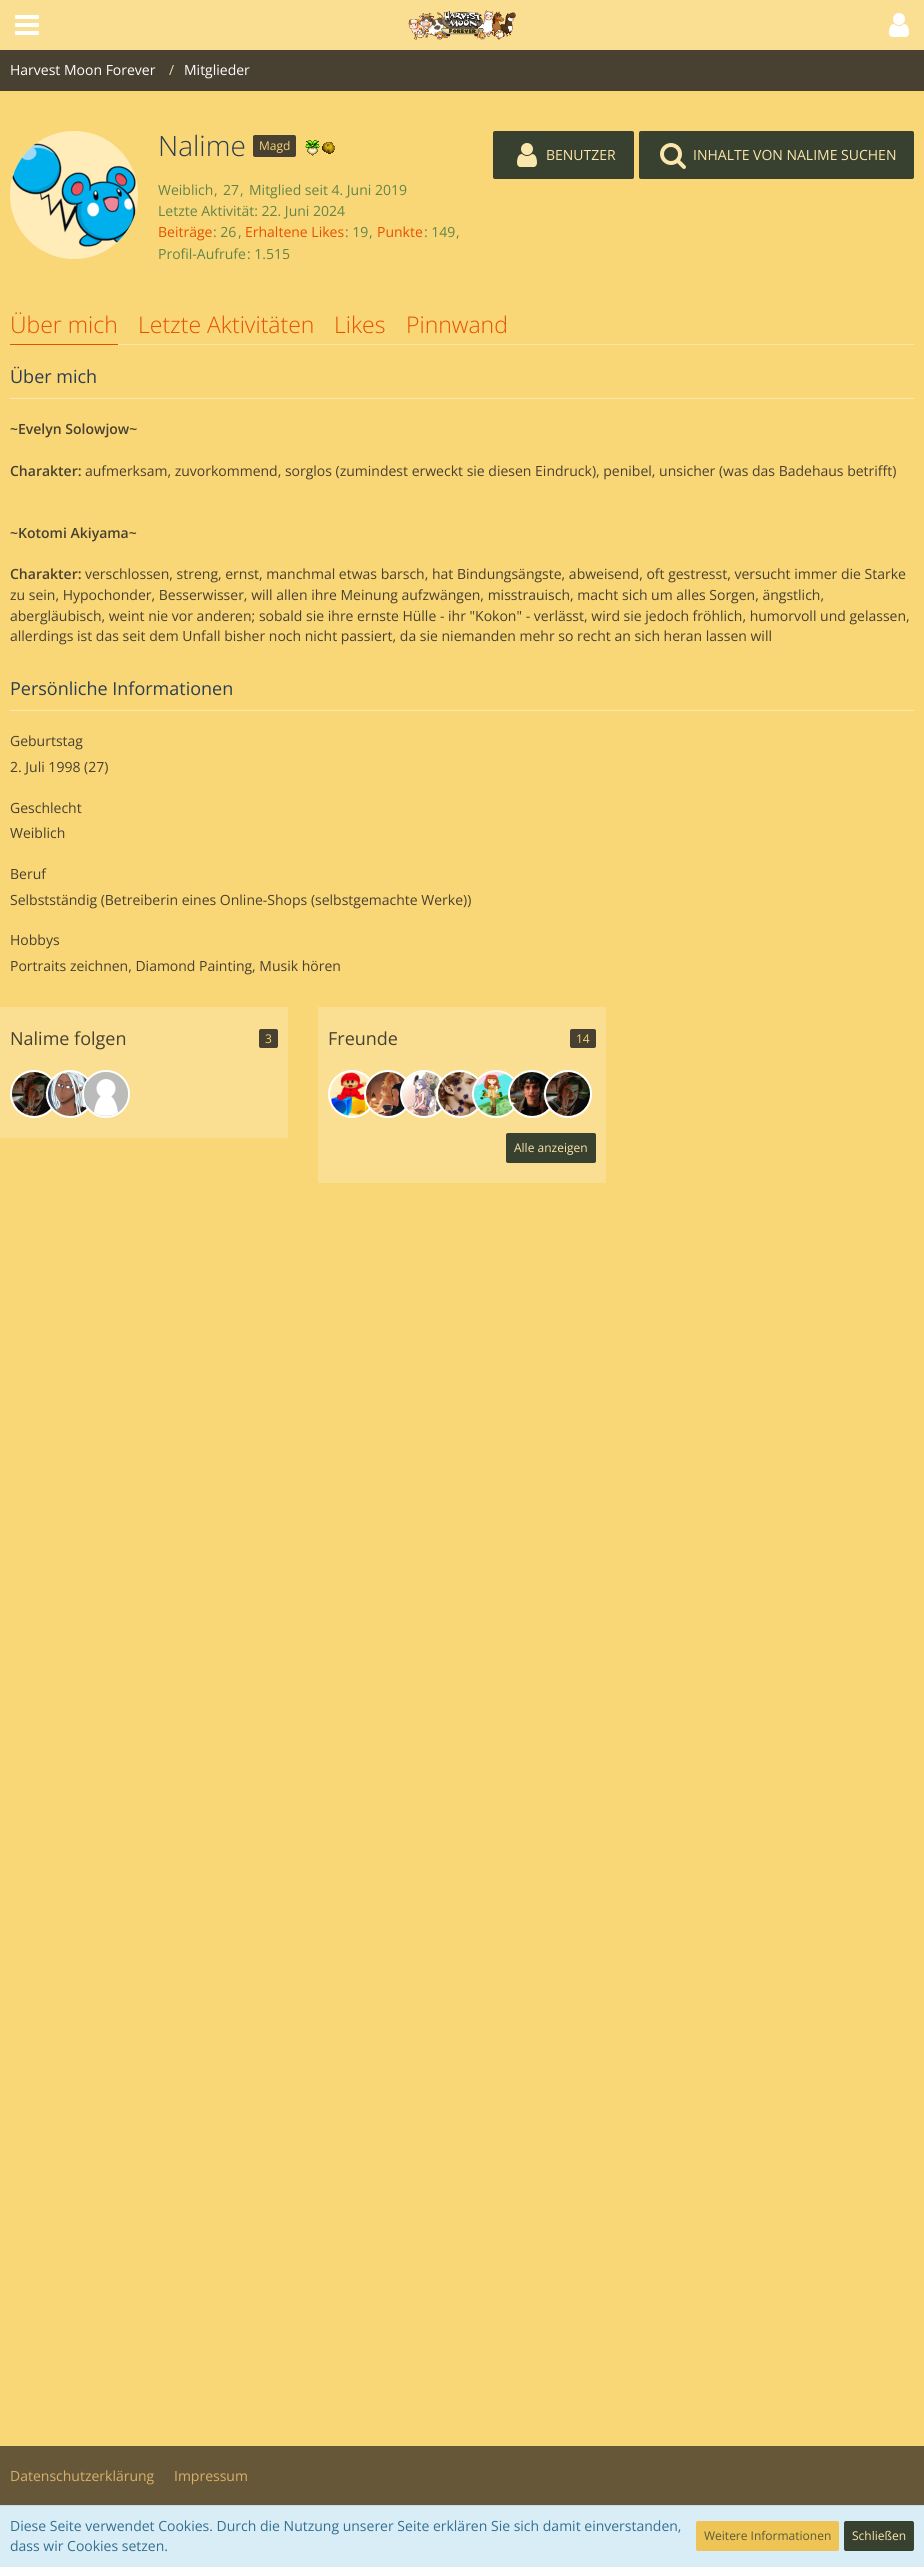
#include <cairo.h>
#include <math.h>
#include <stddef.h>


static void rgb(cairo_t *cr, int r, int g, int b)
{
	cairo_set_source_rgb(cr, r / 255.0, g / 255.0, b / 255.0);
}

static void face(cairo_t *cr, const char *family, double size, int italic, int bold)
{
	cairo_select_font_face(cr, family, italic ? CAIRO_FONT_SLANT_ITALIC : CAIRO_FONT_SLANT_NORMAL,
		bold ? CAIRO_FONT_WEIGHT_BOLD : CAIRO_FONT_WEIGHT_NORMAL);
	cairo_set_font_size(cr, size);
}

static void label(cairo_t *cr, double x, double y, const char *s)
{
	cairo_move_to(cr, x, y);
	cairo_show_text(cr, s);
}

static void rect(cairo_t *cr, double x, double y, double w, double h)
{
	cairo_rectangle(cr, x, y, w, h);
	cairo_fill(cr);
}

static void rrect(cairo_t *cr, double x, double y, double w, double h, double r)
{
	cairo_new_sub_path(cr);
	cairo_arc(cr, x + w - r, y + h - r, r, 0, M_PI / 2);
	cairo_arc(cr, x + r, y + h - r, r, M_PI / 2, M_PI);
	cairo_arc(cr, x + r, y + r, r, M_PI, 1.5 * M_PI);
	cairo_arc(cr, x + w - r, y + r, r, 1.5 * M_PI, 2 * M_PI);
	cairo_close_path(cr);
}

static void image(cairo_t *cr, const char *path, double x, double y, double w, double h)
{
	cairo_surface_t *image = cairo_image_surface_create_from_png(path);
	cairo_save(cr);
	cairo_set_source_surface(cr, image, x, y);
	cairo_rectangle(cr, x, y, w, h);
	cairo_fill(cr);
	cairo_restore(cr);
	cairo_surface_destroy(image);
}

static void draw(cairo_t *cr) {
	rgb(cr, 249, 215, 119);
	cairo_paint(cr);
	rgb(cr, 250, 223, 146);
	rect(cr, 0, 0, 924, 50);
	image(cr, "image0.png", 15, 15, 24, 20);
	image(cr, "image1.png", 889, 13, 20, 24);
	image(cr, "image2.png", 408, 10, 108, 30);
	rgb(cr, 72, 64, 48);
	rect(cr, 0, 50, 924, 41);
	face(cr, "Open Sans", 14, 0, 0);
	rgb(cr, 255, 255, 255);
	label(cr, 10, 75, "Harvest Moon Forever");
	rgb(cr, 236, 218, 168);
	label(cr, 169, 75, "/");
	rgb(cr, 255, 255, 255);
	label(cr, 184, 75, "Mitglieder");
	rgb(cr, 255, 236, 185);
	cairo_new_path(cr);
	cairo_arc(cr, 74, 195, 64, 0, 2 * M_PI);
	cairo_fill(cr);
	image(cr, "image3.png", 12, 143, 124, 104);
	face(cr, "Open Sans Light", 28, 0, 0);
	rgb(cr, 44, 62, 80);
	label(cr, 158, 156, "Nalime");
	rgb(cr, 72, 64, 48);
	rrect(cr, 253, 135, 43, 22, 2);
	cairo_fill(cr);
	face(cr, "Open Sans", 12, 0, 0);
	rgb(cr, 249, 215, 119);
	label(cr, 259, 150, "Magd");
	image(cr, "image4.png", 305, 140, 30, 16);
	face(cr, "Open Sans", 14, 0, 0);
	rgb(cr, 100, 132, 74);
	label(cr, 158, 195, "Weiblich");
	label(cr, 214, 195, ",");
	label(cr, 223, 195, "27");
	label(cr, 240, 195, ",");
	label(cr, 249, 195, "Mitglied seit 4. Juni 2019");
	label(cr, 158, 216, "Letzte Aktivität: 22. Juni 2024");
	rgb(cr, 230, 81, 0);
	label(cr, 158, 237, "Beiträge");
	rgb(cr, 100, 132, 74);
	label(cr, 213, 237, ": 26");
	label(cr, 238, 237, ",");
	rgb(cr, 230, 81, 0);
	label(cr, 245, 237, "Erhaltene Likes");
	rgb(cr, 100, 132, 74);
	label(cr, 345, 237, ": 19");
	label(cr, 369, 237, ",");
	rgb(cr, 230, 81, 0);
	label(cr, 377, 237, "Punkte");
	rgb(cr, 100, 132, 74);
	label(cr, 424, 237, ": 149");
	label(cr, 456, 237, ",");
	label(cr, 158, 259, "Profil-Aufrufe");
	label(cr, 247, 259, ": 1.515");
	rgb(cr, 56, 64, 48);
	rrect(cr, 493, 131, 141, 48, 2);
	cairo_fill(cr);
	image(cr, "image5.png", 517, 143, 20, 24);
	rgb(cr, 251, 230, 171);
	label(cr, 546, 160, "BENUTZER");
	rgb(cr, 56, 64, 48);
	rrect(cr, 639, 131, 275, 48, 2);
	cairo_fill(cr);
	image(cr, "image6.png", 660, 143, 26, 26);
	rgb(cr, 251, 230, 171);
	label(cr, 693, 160, "INHALTE VON NALIME SUCHEN");
	rect(cr, 118, 344, 796, 1);
	face(cr, "Open Sans Light", 23, 0, 0);
	rgb(cr, 230, 81, 0);
	label(cr, 10, 333, "Über mich");
	rect(cr, 10, 344, 108, 1);
	label(cr, 138, 333, "Letzte Aktivitäten");
	label(cr, 334, 333, "Likes");
	label(cr, 406, 333, "Pinnwand");
	rgb(cr, 251, 230, 171);
	rect(cr, 10, 398, 904, 1);
	face(cr, "Open Sans", 18, 0, 0);
	rgb(cr, 44, 62, 80);
	label(cr, 10, 383, "Über mich");
	face(cr, "Open Sans SemiBold", 14, 0, 0);
	rgb(cr, 72, 64, 48);
	label(cr, 10, 434, "~Evelyn Solowjow~");
	label(cr, 10, 476, "Charakter:");
	face(cr, "Open Sans", 14, 0, 0);
	label(cr, 85, 476, "aufmerksam, zuvorkommend, sorglos (zumindest erweckt sie diesen Eindruck), penibel, unsicher (was das Badehaus betrifft)");
	face(cr, "Open Sans SemiBold", 14, 0, 0);
	label(cr, 10, 538, "~Kotomi Akiyama~");
	label(cr, 10, 579, "Charakter:");
	face(cr, "Open Sans", 14, 0, 0);
	label(cr, 85, 579, "verschlossen, streng, ernst, manchmal etwas barsch, hat Bindungsängste, abweisend, oft gestresst, versucht immer die Starke");
	label(cr, 10, 600, "zu sein, Hypochonder, Besserwisser, will allen ihre Meinung aufzwängen, misstrauisch, macht sich um alles Sorgen, ängstlich,");
	label(cr, 10, 621, "abergläubisch, weint nie vor anderen; sobald sie ihre ernste Hülle - ihr \"Kokon\" - verlässt, wird sie jedoch fröhlich, humorvoll und gelassen,");
	label(cr, 10, 641, "allerdings ist das seit dem Unfall bisher noch nicht passiert, da sie niemanden mehr so recht an sich heran lassen will");
	rgb(cr, 251, 230, 171);
	rect(cr, 10, 710, 904, 1);
	face(cr, "Open Sans", 18, 0, 0);
	rgb(cr, 44, 62, 80);
	label(cr, 10, 695, "Persönliche Informationen");
	face(cr, "Open Sans", 14, 0, 0);
	rgb(cr, 72, 64, 48);
	label(cr, 10, 746, "Geburtstag");
	label(cr, 10, 772, "2. Juli 1998 (27)");
	label(cr, 10, 813, "Geschlecht");
	label(cr, 10, 838, "Weiblich");
	label(cr, 10, 879, "Beruf");
	label(cr, 10, 905, "Selbstständig (Betreiberin eines Online-Shops (selbstgemachte Werke))");
	label(cr, 10, 945, "Hobbys");
	label(cr, 10, 971, "Portraits zeichnen, Diamond Painting, Musik hören");
	rgb(cr, 250, 223, 146);
	rect(cr, 0, 1007, 288, 131);
	face(cr, "Open Sans", 18, 0, 0);
	rgb(cr, 72, 64, 48);
	label(cr, 10, 1045, "Nalime folgen");
	rrect(cr, 259, 1029, 19, 19, 2);
	cairo_fill(cr);
	face(cr, "Open Sans", 12, 0, 0);
	rgb(cr, 249, 215, 119);
	label(cr, 265, 1043, "3");
	rgb(cr, 255, 236, 185);
	cairo_new_path(cr);
	cairo_arc(cr, 34, 1094, 23, 0, 2 * M_PI);
	cairo_fill_preserve(cr);
	rgb(cr, 255, 255, 255);
	cairo_stroke(cr);
	image(cr, "image7.png", 12, 1072, 39, 44);
	rgb(cr, 255, 236, 185);
	cairo_arc(cr, 70, 1094, 23, 0, 2 * M_PI);
	cairo_fill_preserve(cr);
	rgb(cr, 255, 255, 255);
	cairo_stroke(cr);
	image(cr, "image8.png", 48, 1072, 41, 44);
	cairo_arc(cr, 106, 1094, 23, 0, 2 * M_PI);
	cairo_stroke(cr);
	rgb(cr, 187, 187, 187);
	cairo_arc(cr, 106, 1094, 22, 0, 2 * M_PI);
	cairo_fill(cr);
	rgb(cr, 255, 255, 255);
	cairo_new_path(cr);
	cairo_move_to(cr, 118, 1112.5);
	cairo_curve_to(cr, 111, 1117, 101, 1117, 94, 1112.5);
	cairo_curve_to(cr, 97, 1088, 115, 1088, 118, 1112.5);
	cairo_close_path(cr);
	cairo_fill(cr);
	cairo_arc(cr, 106, 1088.5, 9.5, 0, 2 * M_PI);
	cairo_fill(cr);
	rgb(cr, 250, 223, 146);
	rect(cr, 318, 1007, 288, 176);
	face(cr, "Open Sans", 18, 0, 0);
	rgb(cr, 72, 64, 48);
	label(cr, 328, 1045, "Freunde");
	rrect(cr, 570, 1029, 26, 19, 2);
	cairo_fill(cr);
	face(cr, "Open Sans", 12, 0, 0);
	rgb(cr, 249, 215, 119);
	label(cr, 576, 1043, "14");
	rgb(cr, 255, 236, 185);
	cairo_new_path(cr);
	cairo_arc(cr, 352, 1094, 23, 0, 2 * M_PI);
	cairo_fill_preserve(cr);
	rgb(cr, 255, 255, 255);
	cairo_stroke(cr);
	image(cr, "image9.png", 331, 1072, 38, 44);
	rgb(cr, 255, 236, 185);
	cairo_arc(cr, 388, 1094, 23, 0, 2 * M_PI);
	cairo_fill_preserve(cr);
	rgb(cr, 255, 255, 255);
	cairo_stroke(cr);
	image(cr, "image10.png", 366, 1072, 39, 44);
	rgb(cr, 255, 236, 185);
	cairo_arc(cr, 424, 1094, 23, 0, 2 * M_PI);
	cairo_fill_preserve(cr);
	rgb(cr, 255, 255, 255);
	cairo_stroke(cr);
	image(cr, "image11.png", 402, 1072, 39, 44);
	rgb(cr, 255, 236, 185);
	cairo_arc(cr, 460, 1094, 23, 0, 2 * M_PI);
	cairo_fill_preserve(cr);
	rgb(cr, 255, 255, 255);
	cairo_stroke(cr);
	image(cr, "image12.png", 438, 1072, 39, 44);
	rgb(cr, 255, 236, 185);
	cairo_arc(cr, 496, 1094, 23, 0, 2 * M_PI);
	cairo_fill_preserve(cr);
	rgb(cr, 255, 255, 255);
	cairo_stroke(cr);
	image(cr, "image13.png", 474, 1072, 39, 44);
	rgb(cr, 255, 236, 185);
	cairo_arc(cr, 532, 1094, 23, 0, 2 * M_PI);
	cairo_fill_preserve(cr);
	rgb(cr, 255, 255, 255);
	cairo_stroke(cr);
	image(cr, "image14.png", 510, 1072, 39, 44);
	rgb(cr, 255, 236, 185);
	cairo_arc(cr, 568, 1094, 23, 0, 2 * M_PI);
	cairo_fill_preserve(cr);
	rgb(cr, 255, 255, 255);
	cairo_stroke(cr);
	image(cr, "image15.png", 546, 1072, 44, 44);
	rgb(cr, 56, 64, 48);
	rrect(cr, 506, 1133, 90, 30, 2);
	cairo_fill(cr);
	rgb(cr, 251, 230, 171);
	label(cr, 514, 1152, "Alle anzeigen");
	rgb(cr, 102, 87, 57);
	rect(cr, 0, 2446, 924, 59);
	face(cr, "Open Sans", 14, 0, 0);
	rgb(cr, 215, 176, 105);
	label(cr, 10, 2481, "Datenschutzerklärung");
	label(cr, 174, 2481, "Impressum");
	rgb(cr, 217, 237, 247);
	rect(cr, 0, 2506, 924, 61);
	rgb(cr, 188, 223, 241);
	rect(cr, 0, 2505, 924, 1);
	rgb(cr, 49, 112, 143);
	label(cr, 10, 2531, "Diese Seite verwendet Cookies. Durch die Nutzung unserer Seite erklären Sie sich damit einverstanden,");
	label(cr, 10, 2551, "dass wir Cookies setzen.");
	rgb(cr, 237, 196, 85);
	rrect(cr, 696, 2521, 143, 30, 2);
	cairo_fill(cr);
	face(cr, "Open Sans", 12, 0, 0);
	rgb(cr, 92, 90, 55);
	label(cr, 704, 2540, "Weitere Informationen");
	rgb(cr, 56, 64, 48);
	rrect(cr, 844, 2521, 70, 30, 2);
	cairo_fill(cr);
	rgb(cr, 251, 230, 171);
	label(cr, 852, 2540, "Schließen");
}

int main(void) {
	cairo_surface_t *surface = cairo_image_surface_create(CAIRO_FORMAT_RGB24, 924, 2567);
	cairo_t *cr = cairo_create(surface);
	cairo_font_options_t *options = cairo_font_options_create();
	cairo_font_options_set_hint_metrics(options, CAIRO_HINT_METRICS_OFF);
	cairo_font_options_set_hint_style(options, CAIRO_HINT_STYLE_NONE);
	cairo_set_font_options(cr, options);
	cairo_set_miter_limit(cr, 4);
	draw(cr);
	cairo_surface_write_to_png(surface, "render.png");
	cairo_font_options_destroy(options);
	cairo_destroy(cr);
	cairo_surface_destroy(surface);
	return 0;
}
